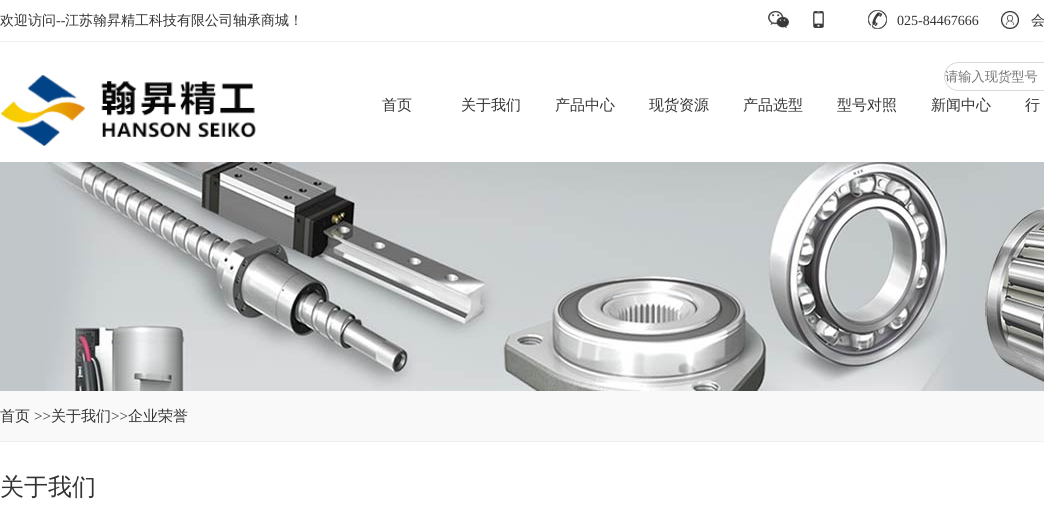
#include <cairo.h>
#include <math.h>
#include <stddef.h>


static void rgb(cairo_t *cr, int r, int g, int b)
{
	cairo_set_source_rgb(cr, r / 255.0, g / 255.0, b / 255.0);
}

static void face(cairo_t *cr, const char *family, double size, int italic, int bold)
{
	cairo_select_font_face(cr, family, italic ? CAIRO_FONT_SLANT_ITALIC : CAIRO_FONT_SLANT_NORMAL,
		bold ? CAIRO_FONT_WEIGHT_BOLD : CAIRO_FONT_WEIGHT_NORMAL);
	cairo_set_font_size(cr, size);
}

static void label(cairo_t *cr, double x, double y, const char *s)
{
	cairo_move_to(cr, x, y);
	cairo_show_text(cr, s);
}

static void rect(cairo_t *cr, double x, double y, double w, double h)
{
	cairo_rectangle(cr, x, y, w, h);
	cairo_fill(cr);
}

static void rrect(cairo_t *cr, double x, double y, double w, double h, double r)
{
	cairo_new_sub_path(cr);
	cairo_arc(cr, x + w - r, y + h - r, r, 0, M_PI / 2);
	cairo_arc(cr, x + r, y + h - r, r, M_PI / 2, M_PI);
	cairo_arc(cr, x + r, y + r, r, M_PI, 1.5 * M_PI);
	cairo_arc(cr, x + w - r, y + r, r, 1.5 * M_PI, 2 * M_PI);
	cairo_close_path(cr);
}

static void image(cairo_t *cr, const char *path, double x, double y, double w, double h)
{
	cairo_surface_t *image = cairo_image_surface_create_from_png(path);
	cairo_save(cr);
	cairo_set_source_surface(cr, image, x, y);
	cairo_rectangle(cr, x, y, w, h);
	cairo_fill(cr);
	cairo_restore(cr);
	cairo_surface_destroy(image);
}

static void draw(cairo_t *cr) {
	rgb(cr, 255, 255, 255);
	cairo_paint(cr);
	rgb(cr, 240, 240, 240);
	rect(cr, 0, 41, 1044, 1);
	face(cr, "WenQuanYi Zen Hei Medium", 14, 0, 0);
	rgb(cr, 51, 51, 51);
	label(cr, 0, 25, "欢迎访问");
	face(cr, "Liberation Serif", 14, 0, 0);
	label(cr, 56, 25, "--");
	face(cr, "WenQuanYi Zen Hei Medium", 14, 0, 0);
	label(cr, 65, 25, "江苏翰昇精工科技有限公司轴承商城！");
	image(cr, "image0.png", 768, 11, 21, 17);
	image(cr, "image1.png", 813, 11, 11, 17);
	image(cr, "image2.png", 868, 10, 19, 19);
	face(cr, "Liberation Serif", 14, 0, 0);
	label(cr, 897, 25, "025-84467666");
	image(cr, "image3.png", 999, 10, 22, 19);
	face(cr, "WenQuanYi Zen Hei Medium", 14, 0, 0);
	label(cr, 1031, 25, "会");
	rrect(cr, 944.5, 62.5, 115, 28, 14);
	rgb(cr, 218, 218, 218);
	cairo_set_line_width(cr, 1);
	cairo_stroke(cr);
	cairo_save(cr);
	rrect(cr, 945, 63, 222, 27, 13.5);
	cairo_clip(cr);
	face(cr, "WenQuanYi Zen Hei Medium", 13.25, 0, 0);
	rgb(cr, 117, 117, 117);
	label(cr, 945, 81, "请输入现货型号");
	cairo_restore(cr);
	image(cr, "image4.png", 1, 75, 255, 71);
	face(cr, "WenQuanYi Zen Hei Medium", 15, 0, 0);
	rgb(cr, 51, 51, 51);
	label(cr, 382, 110, "首页");
	label(cr, 461, 110, "关于我们");
	label(cr, 555, 110, "产品中心");
	label(cr, 649, 110, "现货资源");
	label(cr, 743, 110, "产品选型");
	label(cr, 837, 110, "型号对照");
	label(cr, 931, 110, "新闻中心");
	label(cr, 1025, 110, "行");
	rgb(cr, 193, 198, 201);
	rect(cr, 0, 162, 45, 229);
	image(cr, "image5.png", 45, 162, 999, 229);
	rgb(cr, 249, 249, 249);
	rect(cr, 0, 391, 1044, 50);
	rgb(cr, 239, 239, 239);
	rect(cr, 0, 441, 1044, 1);
	rgb(cr, 51, 51, 51);
	label(cr, 0, 421, "首页");
	face(cr, "Liberation Serif", 15, 0, 0);
	label(cr, 34, 421, ">>");
	face(cr, "WenQuanYi Zen Hei Medium", 15, 0, 0);
	label(cr, 51, 421, "关于我们");
	face(cr, "Liberation Serif", 15, 0, 0);
	label(cr, 111, 421, ">>");
	face(cr, "WenQuanYi Zen Hei Medium", 15, 0, 0);
	label(cr, 128, 421, "企业荣誉");
	face(cr, "WenQuanYi Zen Hei Medium", 24, 0, 0);
	label(cr, 0, 495, "关于我们");
}

int main(void) {
	cairo_surface_t *surface = cairo_image_surface_create(CAIRO_FORMAT_RGB24, 1044, 505);
	cairo_t *cr = cairo_create(surface);
	cairo_font_options_t *options = cairo_font_options_create();
	cairo_font_options_set_hint_metrics(options, CAIRO_HINT_METRICS_OFF);
	cairo_font_options_set_hint_style(options, CAIRO_HINT_STYLE_NONE);
	cairo_set_font_options(cr, options);
	cairo_set_miter_limit(cr, 4);
	draw(cr);
	cairo_surface_write_to_png(surface, "render.png");
	cairo_font_options_destroy(options);
	cairo_destroy(cr);
	cairo_surface_destroy(surface);
	return 0;
}
